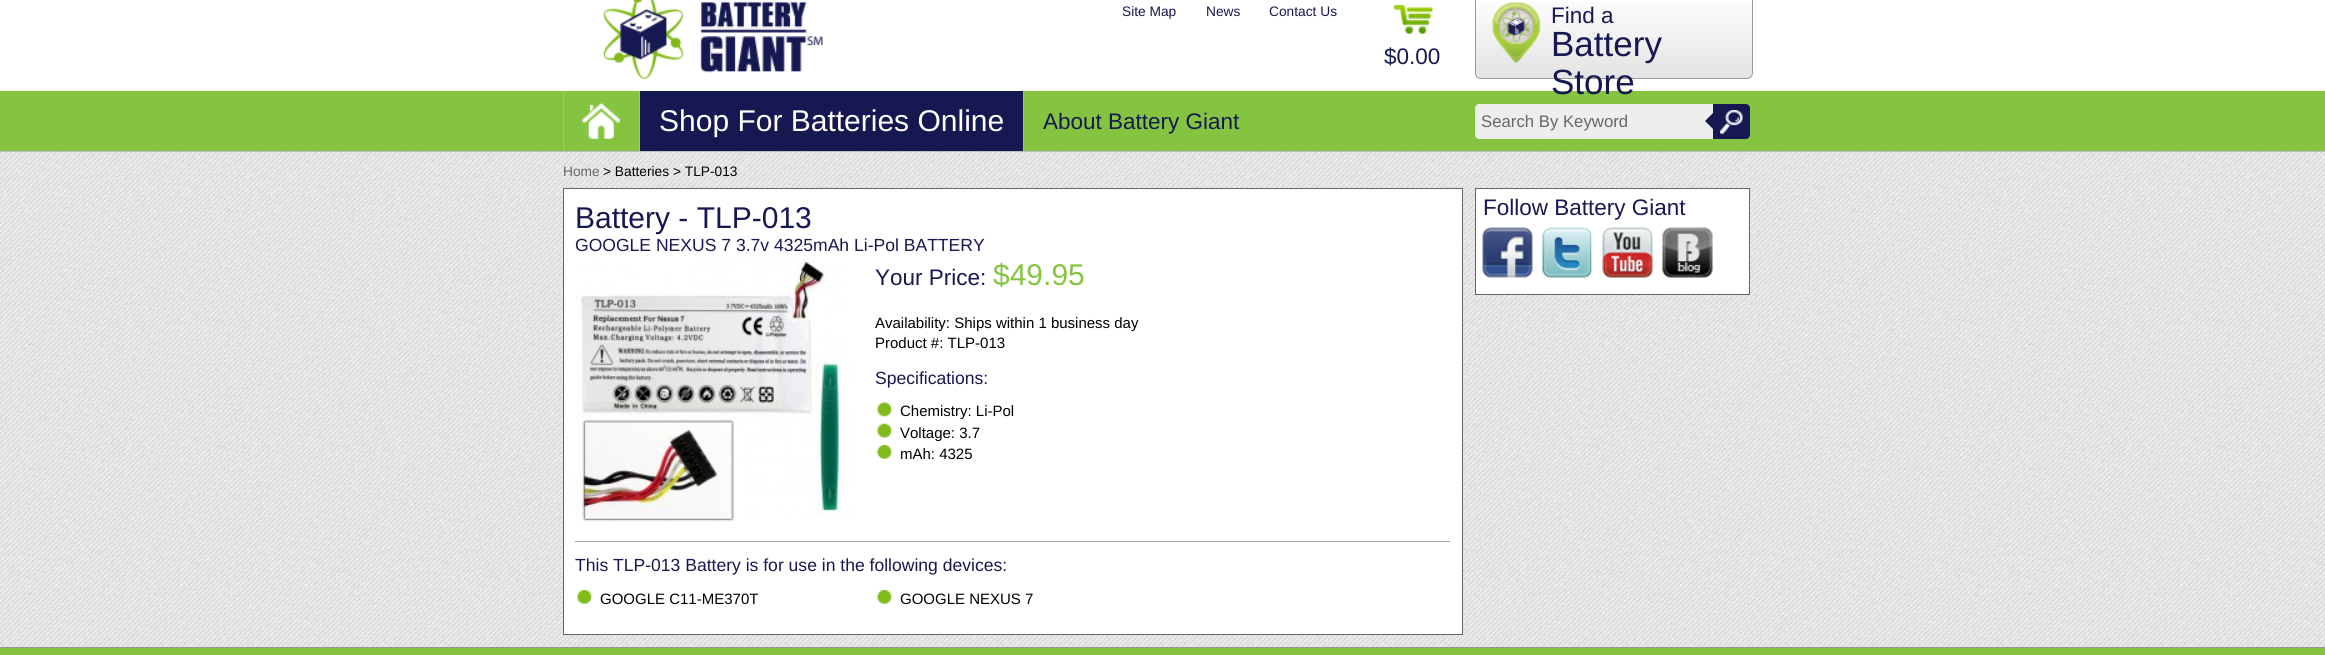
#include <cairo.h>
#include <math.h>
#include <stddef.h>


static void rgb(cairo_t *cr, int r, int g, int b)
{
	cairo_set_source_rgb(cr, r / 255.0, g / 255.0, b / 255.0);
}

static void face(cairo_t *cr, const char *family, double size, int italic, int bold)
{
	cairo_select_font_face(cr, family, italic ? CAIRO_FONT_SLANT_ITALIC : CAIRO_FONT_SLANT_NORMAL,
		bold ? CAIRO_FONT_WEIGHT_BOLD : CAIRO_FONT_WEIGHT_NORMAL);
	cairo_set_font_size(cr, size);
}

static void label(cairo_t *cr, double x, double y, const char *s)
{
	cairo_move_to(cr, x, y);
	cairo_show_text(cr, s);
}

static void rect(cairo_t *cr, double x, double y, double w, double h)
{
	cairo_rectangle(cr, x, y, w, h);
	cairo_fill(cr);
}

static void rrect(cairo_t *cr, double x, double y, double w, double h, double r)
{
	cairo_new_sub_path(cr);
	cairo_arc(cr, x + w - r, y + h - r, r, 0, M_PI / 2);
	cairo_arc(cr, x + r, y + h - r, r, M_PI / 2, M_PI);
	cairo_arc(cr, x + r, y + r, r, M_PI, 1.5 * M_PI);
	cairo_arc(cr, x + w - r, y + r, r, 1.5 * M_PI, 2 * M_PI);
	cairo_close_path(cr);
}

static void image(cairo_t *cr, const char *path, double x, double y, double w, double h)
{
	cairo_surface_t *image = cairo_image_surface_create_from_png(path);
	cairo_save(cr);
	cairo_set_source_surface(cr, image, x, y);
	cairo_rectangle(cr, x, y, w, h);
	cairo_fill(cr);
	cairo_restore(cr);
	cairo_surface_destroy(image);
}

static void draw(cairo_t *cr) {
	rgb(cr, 70, 70, 70);
	cairo_paint(cr);
	rgb(cr, 255, 255, 255);
	rect(cr, 0, 0, 2325, 91);
	image(cr, "image0.png", 603, 0, 220, 79);
	face(cr, "Liberation Sans", 13.75, 0, 0);
	rgb(cr, 22, 24, 81);
	label(cr, 1122, 16, "Site Map");
	label(cr, 1206, 16, "News");
	label(cr, 1269, 16, "Contact Us");
	image(cr, "image1.png", 1393, 5, 40, 29);
	face(cr, "Liberation Sans", 22.5, 0, 0);
	label(cr, 1384, 64, "$0.00");
	image(cr, "image2.png", 1475, 2, 278, 77);
	rrect(cr, 1475.5, -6.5, 277, 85, 5.5);
	rgb(cr, 153, 153, 153);
	cairo_set_line_width(cr, 1);
	cairo_stroke(cr);
	rgb(cr, 22, 24, 81);
	label(cr, 1551, 23, "Find a");
	face(cr, "Liberation Sans", 35, 0, 0);
	label(cr, 1551, 56, "Battery");
	rgb(cr, 133, 196, 65);
	rect(cr, 0, 91, 2325, 60);
	rgb(cr, 22, 24, 81);
	label(cr, 1551, 94, "Store");
	rgb(cr, 162, 210, 77);
	rect(cr, 563, 91, 1, 60);
	image(cr, "image3.png", 582, 103, 38, 36);
	rgb(cr, 22, 24, 81);
	rect(cr, 640, 91, 383, 60);
	rgb(cr, 162, 210, 77);
	rect(cr, 639, 91, 1, 60);
	face(cr, "Liberation Sans", 30, 0, 0);
	rgb(cr, 255, 255, 255);
	label(cr, 659, 131, "Shop For Batteries Online");
	rgb(cr, 162, 210, 77);
	rect(cr, 1023, 91, 1, 60);
	face(cr, "Liberation Sans", 22.5, 0, 0);
	rgb(cr, 22, 24, 81);
	label(cr, 1043, 129, "About Battery Giant");
	rgb(cr, 238, 238, 238);
	cairo_new_path(cr);
	cairo_move_to(cr, 1479, 104);
	cairo_line_to(cr, 1713, 104);
	cairo_line_to(cr, 1713, 139);
	cairo_line_to(cr, 1479, 139);
	cairo_curve_to(cr, 1477, 139, 1475, 137, 1475, 135);
	cairo_line_to(cr, 1475, 108);
	cairo_curve_to(cr, 1475, 106, 1477, 104, 1479, 104);
	cairo_close_path(cr);
	cairo_fill(cr);
	face(cr, "Liberation Sans", 16.75, 0, 0);
	rgb(cr, 102, 102, 102);
	label(cr, 1481, 127, "Search By Keyword");
	rgb(cr, 22, 24, 81);
	cairo_new_path(cr);
	cairo_move_to(cr, 1713, 104);
	cairo_line_to(cr, 1746, 104);
	cairo_curve_to(cr, 1748, 104, 1750, 106, 1750, 108);
	cairo_line_to(cr, 1750, 135);
	cairo_curve_to(cr, 1750, 137, 1748, 139, 1746, 139);
	cairo_line_to(cr, 1713, 139);
	cairo_close_path(cr);
	cairo_fill(cr);
	cairo_new_path(cr);
	cairo_move_to(cr, 1715, 111);
	cairo_line_to(cr, 1715, 131);
	cairo_line_to(cr, 1705, 121);
	cairo_close_path(cr);
	cairo_fill(cr);
	image(cr, "image4.png", 1720, 110, 23, 24);
	image(cr, "image5.png", 0, 151, 2325, 497);
	face(cr, "Liberation Sans", 13.75, 0, 0);
	rgb(cr, 102, 102, 102);
	label(cr, 563, 176, "Home");
	rgb(cr, 0, 0, 0);
	label(cr, 603, 176, "> Batteries > TLP-013");
	rgb(cr, 255, 255, 255);
	cairo_rectangle(cr, 563.5, 188.5, 899, 446);
	cairo_fill_preserve(cr);
	rgb(cr, 102, 102, 102);
	cairo_stroke(cr);
	face(cr, "Liberation Sans", 30, 0, 0);
	rgb(cr, 22, 24, 81);
	label(cr, 575, 228, "Battery - TLP-013");
	face(cr, "Liberation Sans", 17.55, 0, 0);
	label(cr, 575, 251, "GOOGLE NEXUS 7 3.7v 4325mAh Li-Pol BATTERY");
	image(cr, "image6.png", 575, 255, 275, 267);
	face(cr, "Liberation Sans", 22.5, 0, 0);
	label(cr, 875, 285, "Your Price:");
	face(cr, "Liberation Sans", 30, 0, 0);
	rgb(cr, 133, 196, 65);
	label(cr, 993, 285, "$49.95");
	face(cr, "Liberation Sans", 15, 0, 0);
	rgb(cr, 0, 0, 0);
	label(cr, 875, 328, "Availability: Ships within 1 business day");
	label(cr, 875, 348, "Product #: TLP-013");
	face(cr, "Liberation Sans", 17.55, 0, 0);
	rgb(cr, 22, 24, 81);
	label(cr, 875, 384, "Specifications:");
	image(cr, "image7.png", 877, 402, 15, 15);
	face(cr, "Liberation Sans", 15, 0, 0);
	rgb(cr, 0, 0, 0);
	label(cr, 900, 416, "Chemistry: Li-Pol");
	image(cr, "image8.png", 877, 423, 15, 15);
	label(cr, 900, 438, "Voltage: 3.7");
	image(cr, "image9.png", 877, 445, 15, 14);
	label(cr, 900, 459, "mAh: 4325");
	rgb(cr, 159, 159, 159);
	rect(cr, 575, 541, 875, 1);
	face(cr, "Liberation Sans", 17.55, 0, 0);
	rgb(cr, 22, 24, 81);
	label(cr, 575, 571, "This TLP-013 Battery is for use in the following devices:");
	image(cr, "image10.png", 577, 590, 15, 14);
	face(cr, "Liberation Sans", 15, 0, 0);
	rgb(cr, 0, 0, 0);
	label(cr, 600, 604, "GOOGLE C11-ME370T");
	image(cr, "image9.png", 877, 590, 15, 14);
	label(cr, 900, 604, "GOOGLE NEXUS 7");
	rgb(cr, 255, 255, 255);
	cairo_rectangle(cr, 1475.5, 188.5, 274, 106);
	cairo_fill_preserve(cr);
	rgb(cr, 102, 102, 102);
	cairo_stroke(cr);
	face(cr, "Liberation Sans", 22.5, 0, 0);
	rgb(cr, 22, 24, 81);
	label(cr, 1483, 215, "Follow Battery Giant");
	image(cr, "image11.png", 1482, 227, 51, 51);
	image(cr, "image12.png", 1542, 227, 50, 51);
	image(cr, "image13.png", 1602, 227, 51, 51);
	image(cr, "image14.png", 1662, 227, 51, 51);
	rgb(cr, 133, 196, 65);
	rect(cr, 0, 648, 2325, 7);
}

int main(void) {
	cairo_surface_t *surface = cairo_image_surface_create(CAIRO_FORMAT_RGB24, 2325, 655);
	cairo_t *cr = cairo_create(surface);
	cairo_font_options_t *options = cairo_font_options_create();
	cairo_font_options_set_hint_metrics(options, CAIRO_HINT_METRICS_OFF);
	cairo_font_options_set_hint_style(options, CAIRO_HINT_STYLE_NONE);
	cairo_set_font_options(cr, options);
	cairo_set_miter_limit(cr, 4);
	draw(cr);
	cairo_surface_write_to_png(surface, "render.png");
	cairo_font_options_destroy(options);
	cairo_destroy(cr);
	cairo_surface_destroy(surface);
	return 0;
}
